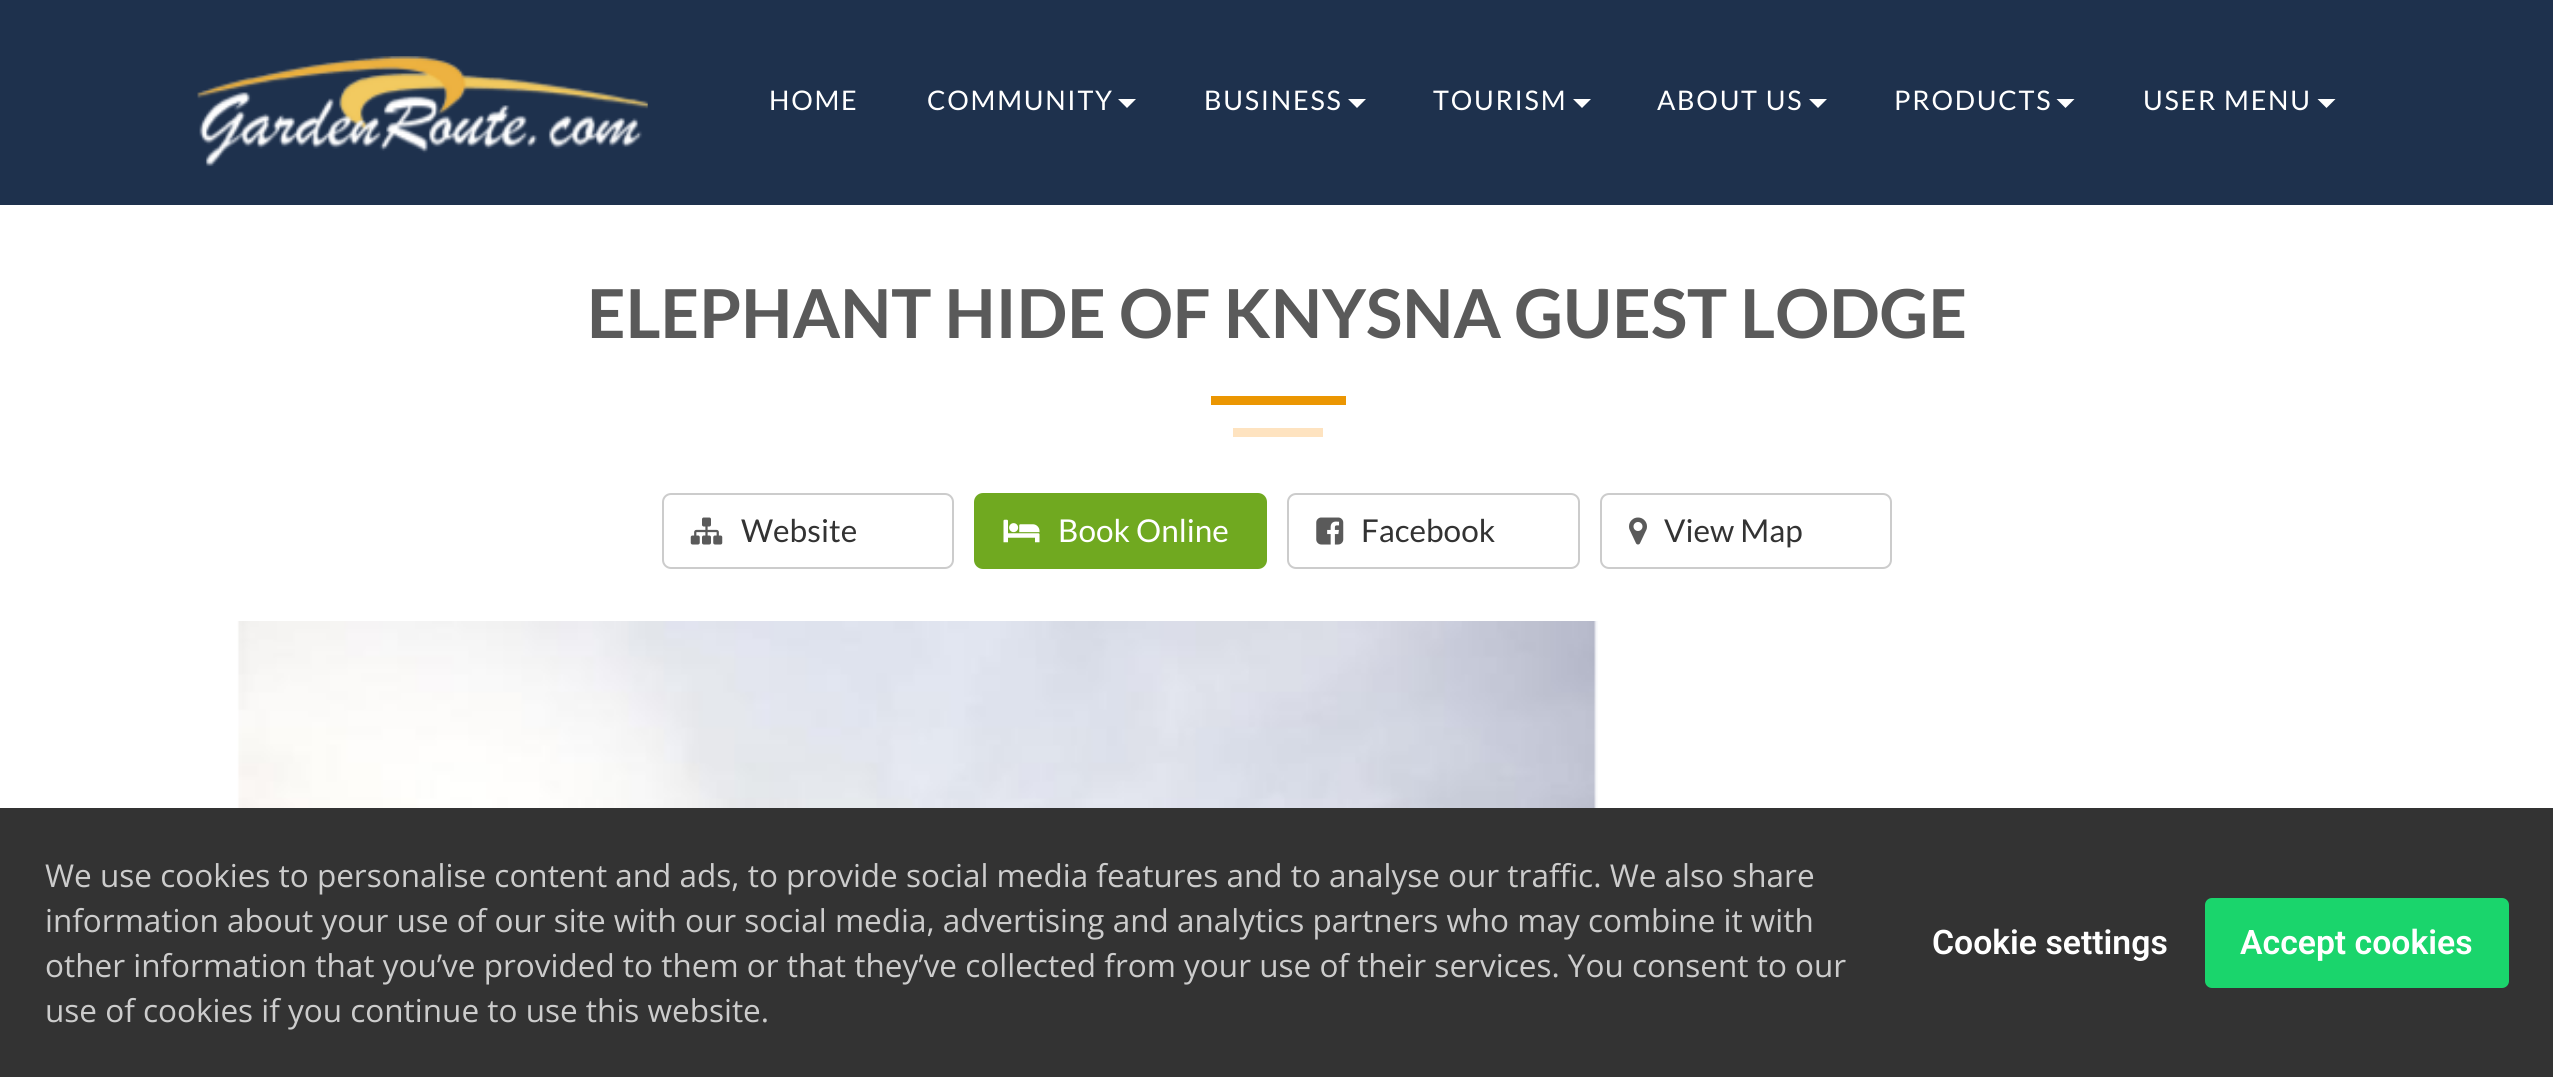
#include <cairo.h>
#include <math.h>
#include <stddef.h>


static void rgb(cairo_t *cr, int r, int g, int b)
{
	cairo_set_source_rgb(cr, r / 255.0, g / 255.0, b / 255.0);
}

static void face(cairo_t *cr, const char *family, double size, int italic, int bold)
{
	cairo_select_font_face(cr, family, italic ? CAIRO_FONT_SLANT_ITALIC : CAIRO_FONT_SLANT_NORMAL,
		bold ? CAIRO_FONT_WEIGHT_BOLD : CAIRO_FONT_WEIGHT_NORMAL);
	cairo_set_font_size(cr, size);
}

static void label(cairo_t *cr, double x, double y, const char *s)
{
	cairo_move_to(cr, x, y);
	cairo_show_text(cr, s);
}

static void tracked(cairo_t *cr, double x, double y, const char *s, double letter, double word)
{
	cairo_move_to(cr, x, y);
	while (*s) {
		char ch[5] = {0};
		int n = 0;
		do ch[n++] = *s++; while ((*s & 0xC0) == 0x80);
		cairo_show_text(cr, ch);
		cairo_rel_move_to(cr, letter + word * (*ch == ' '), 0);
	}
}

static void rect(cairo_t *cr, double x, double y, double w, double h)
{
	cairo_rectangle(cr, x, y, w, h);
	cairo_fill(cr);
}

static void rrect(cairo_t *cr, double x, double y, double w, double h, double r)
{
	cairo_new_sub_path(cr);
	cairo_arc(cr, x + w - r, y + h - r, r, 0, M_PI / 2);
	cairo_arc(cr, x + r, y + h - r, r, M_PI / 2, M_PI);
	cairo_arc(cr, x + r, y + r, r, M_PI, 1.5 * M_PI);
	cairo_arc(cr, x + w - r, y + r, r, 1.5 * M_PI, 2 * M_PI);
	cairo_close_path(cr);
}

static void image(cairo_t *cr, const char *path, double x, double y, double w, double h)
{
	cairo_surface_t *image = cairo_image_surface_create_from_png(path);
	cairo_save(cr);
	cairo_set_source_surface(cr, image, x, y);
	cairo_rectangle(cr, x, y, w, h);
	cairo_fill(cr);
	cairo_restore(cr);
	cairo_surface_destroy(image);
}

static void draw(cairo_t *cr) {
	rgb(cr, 255, 255, 255);
	cairo_paint(cr);
	rgb(cr, 30, 49, 77);
	rect(cr, 0, 0, 2553, 205);
	image(cr, "image0.png", 197, 56, 451, 111);
	face(cr, "Lato", 27, 0, 0);
	rgb(cr, 255, 255, 255);
	tracked(cr, 769, 110, "HOME", 1.75, 0);
	tracked(cr, 927, 110, "COMMUNITY", 1.75, 0);
	cairo_new_path(cr);
	cairo_move_to(cr, 1118, 99);
	cairo_line_to(cr, 1136, 99);
	cairo_line_to(cr, 1127, 108);
	cairo_close_path(cr);
	cairo_fill(cr);
	tracked(cr, 1204, 110, "BUSINESS", 1.75, 0);
	cairo_new_path(cr);
	cairo_move_to(cr, 1348, 99);
	cairo_line_to(cr, 1366, 99);
	cairo_line_to(cr, 1357, 108);
	cairo_close_path(cr);
	cairo_fill(cr);
	tracked(cr, 1433, 110, "TOURISM", 1.75, 0);
	cairo_new_path(cr);
	cairo_move_to(cr, 1573, 99);
	cairo_line_to(cr, 1591, 99);
	cairo_line_to(cr, 1582, 108);
	cairo_close_path(cr);
	cairo_fill(cr);
	tracked(cr, 1657, 110, "ABOUT US", 1.75, 0);
	cairo_new_path(cr);
	cairo_move_to(cr, 1809, 99);
	cairo_line_to(cr, 1827, 99);
	cairo_line_to(cr, 1818, 108);
	cairo_close_path(cr);
	cairo_fill(cr);
	tracked(cr, 1894, 110, "PRODUCTS", 1.75, 0);
	cairo_new_path(cr);
	cairo_move_to(cr, 2056.5, 99);
	cairo_line_to(cr, 2074.5, 99);
	cairo_line_to(cr, 2065.5, 108);
	cairo_close_path(cr);
	cairo_fill(cr);
	tracked(cr, 2143, 110, "USER MENU", 1.75, 0);
	cairo_new_path(cr);
	cairo_move_to(cr, 2317.5, 99);
	cairo_line_to(cr, 2335.5, 99);
	cairo_line_to(cr, 2326.5, 108);
	cairo_close_path(cr);
	cairo_fill(cr);
	face(cr, "Lato", 67.5, 0, 1);
	rgb(cr, 90, 90, 90);
	label(cr, 587, 338, "ELEPHANT HIDE OF KNYSNA GUEST LODGE");
	rgb(cr, 235, 150, 2);
	rect(cr, 1211, 396, 135, 9);
	rgb(cr, 254, 227, 192);
	rect(cr, 1233, 428, 90, 9);
	rrect(cr, 663, 494, 290, 74, 8);
	rgb(cr, 204, 204, 204);
	cairo_stroke(cr);
	image(cr, "image1.png", 690, 517, 33, 28);
	face(cr, "Lato", 31.5, 0, 0);
	rgb(cr, 51, 51, 51);
	label(cr, 741, 542, "Website");
	rgb(cr, 112, 169, 32);
	rrect(cr, 975, 494, 291, 74, 8);
	cairo_fill_preserve(cr);
	cairo_stroke(cr);
	image(cr, "image2.png", 1003, 519, 37, 24);
	rgb(cr, 255, 255, 255);
	label(cr, 1058, 542, "Book Online");
	rrect(cr, 1288, 494, 291, 74, 8);
	rgb(cr, 204, 204, 204);
	cairo_stroke(cr);
	image(cr, "image3.png", 1316, 517, 28, 28);
	rgb(cr, 51, 51, 51);
	label(cr, 1361, 542, "Facebook");
	rrect(cr, 1601, 494, 290, 74, 8);
	rgb(cr, 204, 204, 204);
	cairo_stroke(cr);
	image(cr, "image4.png", 1629, 517, 18, 28);
	rgb(cr, 51, 51, 51);
	label(cr, 1664, 542, "View Map");
	image(cr, "image5.png", 237, 621, 1361, 187);
	rect(cr, 0, 808, 2553, 269);
	face(cr, "Open Sans", 31.5, 0, 0);
	rgb(cr, 204, 204, 204);
	label(cr, 45, 887, "We use cookies to personalise content and ads, to provide social media features and to analyse our traffic. We also share");
	label(cr, 45, 932, "information about your use of our site with our social media, advertising and analytics partners who may combine it with");
	label(cr, 45, 977, "other information that you’ve provided to them or that they’ve collected from your use of their services. You consent to our");
	label(cr, 45, 1022, "use of cookies if you continue to use this website.");
	face(cr, "Roboto SemiBold", 33.75, 0, 0);
	rgb(cr, 255, 255, 255);
	label(cr, 1932, 954, "Cookie settings");
	rgb(cr, 26, 213, 108);
	rrect(cr, 2205, 898, 304, 90, 7);
	cairo_fill(cr);
	rgb(cr, 255, 255, 255);
	label(cr, 2240, 954, "Accept cookies");
}

int main(void) {
	cairo_surface_t *surface = cairo_image_surface_create(CAIRO_FORMAT_RGB24, 2553, 1077);
	cairo_t *cr = cairo_create(surface);
	cairo_font_options_t *options = cairo_font_options_create();
	cairo_font_options_set_hint_metrics(options, CAIRO_HINT_METRICS_OFF);
	cairo_font_options_set_hint_style(options, CAIRO_HINT_STYLE_NONE);
	cairo_set_font_options(cr, options);
	cairo_set_miter_limit(cr, 4);
	draw(cr);
	cairo_surface_write_to_png(surface, "render.png");
	cairo_font_options_destroy(options);
	cairo_destroy(cr);
	cairo_surface_destroy(surface);
	return 0;
}
